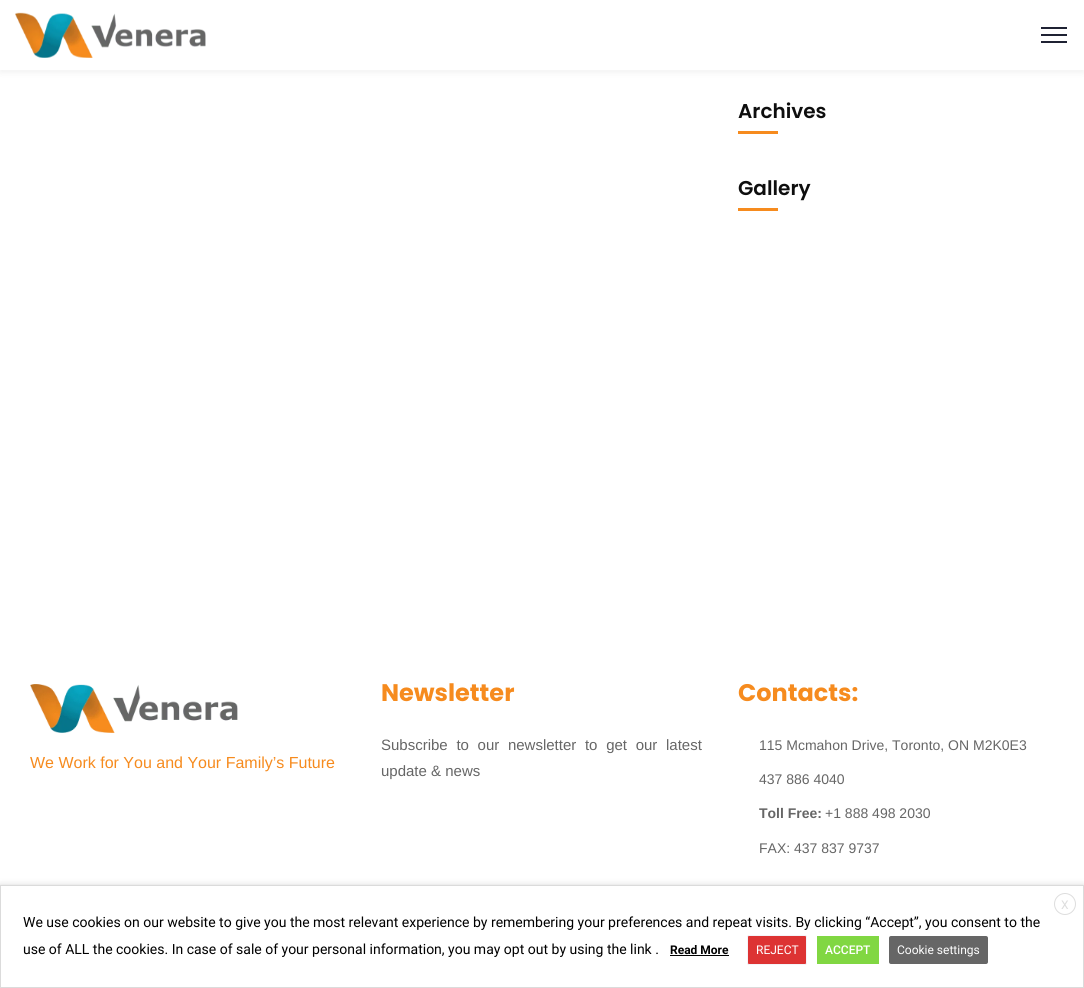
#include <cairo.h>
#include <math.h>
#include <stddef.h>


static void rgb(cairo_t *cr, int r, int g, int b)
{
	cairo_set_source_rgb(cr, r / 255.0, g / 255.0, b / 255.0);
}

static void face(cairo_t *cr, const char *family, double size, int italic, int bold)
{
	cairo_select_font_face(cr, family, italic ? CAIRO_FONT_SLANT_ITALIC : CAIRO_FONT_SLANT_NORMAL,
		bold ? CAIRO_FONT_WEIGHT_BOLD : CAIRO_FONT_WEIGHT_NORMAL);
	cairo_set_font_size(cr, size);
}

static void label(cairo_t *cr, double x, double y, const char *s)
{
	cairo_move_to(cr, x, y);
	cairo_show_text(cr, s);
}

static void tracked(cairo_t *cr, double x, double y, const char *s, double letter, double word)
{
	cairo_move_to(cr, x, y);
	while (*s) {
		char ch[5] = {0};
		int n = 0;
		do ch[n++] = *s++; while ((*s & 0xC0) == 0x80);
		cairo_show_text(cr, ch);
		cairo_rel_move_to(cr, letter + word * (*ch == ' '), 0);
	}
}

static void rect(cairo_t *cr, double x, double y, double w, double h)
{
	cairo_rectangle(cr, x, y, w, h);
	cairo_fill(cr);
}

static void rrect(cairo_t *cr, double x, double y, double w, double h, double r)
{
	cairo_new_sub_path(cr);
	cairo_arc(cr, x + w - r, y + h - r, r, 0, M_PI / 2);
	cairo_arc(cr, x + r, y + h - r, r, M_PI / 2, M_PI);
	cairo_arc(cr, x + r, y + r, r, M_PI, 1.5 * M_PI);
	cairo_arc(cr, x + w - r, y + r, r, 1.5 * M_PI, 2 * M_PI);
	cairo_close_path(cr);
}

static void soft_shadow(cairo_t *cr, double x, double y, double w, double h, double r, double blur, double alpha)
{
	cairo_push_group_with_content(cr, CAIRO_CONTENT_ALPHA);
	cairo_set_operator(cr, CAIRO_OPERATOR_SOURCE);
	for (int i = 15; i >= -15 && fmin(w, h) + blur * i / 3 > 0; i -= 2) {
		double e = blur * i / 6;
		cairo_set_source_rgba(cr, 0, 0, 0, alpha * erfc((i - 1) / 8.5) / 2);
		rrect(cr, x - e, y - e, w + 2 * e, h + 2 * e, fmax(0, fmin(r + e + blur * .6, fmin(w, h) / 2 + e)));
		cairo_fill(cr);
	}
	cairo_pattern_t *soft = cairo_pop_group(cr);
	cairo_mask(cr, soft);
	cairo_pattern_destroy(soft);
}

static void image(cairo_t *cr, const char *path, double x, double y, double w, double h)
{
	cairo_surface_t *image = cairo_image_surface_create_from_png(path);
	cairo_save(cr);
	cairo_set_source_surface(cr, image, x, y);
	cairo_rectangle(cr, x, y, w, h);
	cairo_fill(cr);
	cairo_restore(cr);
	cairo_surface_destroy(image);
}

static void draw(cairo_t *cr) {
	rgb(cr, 255, 255, 255);
	cairo_paint(cr);
	rgb(cr, 0, 0, 0);
	soft_shadow(cr, 0, 3, 1084, 70, 0, 3, 0.05);
	rgb(cr, 255, 255, 255);
	rect(cr, 0, 0, 1084, 70);
	image(cr, "image0.png", 15, 12, 191, 46);
	rgb(cr, 31, 34, 51);
	rect(cr, 1041, 27, 26, 2);
	rect(cr, 1041, 34, 26, 2);
	rect(cr, 1041, 41, 26, 2);
	face(cr, "Poppins SemiBold", 20, 0, 0);
	rgb(cr, 14, 14, 14);
	label(cr, 738, 118, "Archives");
	rgb(cr, 246, 139, 30);
	rect(cr, 738, 131, 40, 3);
	rgb(cr, 14, 14, 14);
	label(cr, 738, 195, "Gallery");
	rgb(cr, 246, 139, 30);
	rect(cr, 738, 208, 40, 3);
	image(cr, "image1.png", 30, 684, 208, 49);
	face(cr, "Liberation Sans", 16, 0, 0);
	label(cr, 30, 768, "We Work for You and Your Family’s Future");
	face(cr, "Poppins", 24, 0, 1);
	label(cr, 381, 701, "Newsletter");
	face(cr, "Liberation Sans", 15, 0, 0);
	rgb(cr, 102, 102, 102);
	tracked(cr, 381, 750, "Subscribe to our newsletter to get our latest", 0, 4.5);
	label(cr, 381, 776, "update & news");
	face(cr, "Poppins", 24, 0, 1);
	rgb(cr, 246, 139, 30);
	label(cr, 738, 701, "Contacts:");
	face(cr, "Liberation Sans", 14, 0, 0);
	rgb(cr, 102, 102, 102);
	label(cr, 759, 750, "115 Mcmahon Drive, Toronto, ON M2K0E3");
	label(cr, 759, 784, "437 886 4040");
	face(cr, "Liberation Sans", 14, 0, 1);
	label(cr, 759, 818, "Toll Free:");
	face(cr, "Liberation Sans", 14, 0, 0);
	label(cr, 825, 818, "+1 888 498 2030");
	label(cr, 759, 853, "FAX: 437 837 9737");
	rgb(cr, 0, 0, 0);
	soft_shadow(cr, 0, 890, 1084, 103, 0, 5, 0.5);
	rgb(cr, 255, 255, 255);
	cairo_rectangle(cr, 0.5, 885.5, 1083, 102);
	cairo_fill_preserve(cr);
	rgb(cr, 219, 219, 219);
	cairo_set_line_width(cr, 1);
	cairo_stroke(cr);
	cairo_arc(cr, 1065, 904, 10.5, 0, 2 * M_PI);
	rgb(cr, 221, 221, 221);
	cairo_stroke(cr);
	face(cr, "Roboto", 12, 0, 0);
	label(cr, 1061, 909, "X");
	face(cr, "Roboto", 14, 0, 0);
	rgb(cr, 0, 0, 0);
	label(cr, 23, 927, "We use cookies on our website to give you the most relevant experience by remembering your preferences and repeat visits. By clicking “Accept”, you consent to the");
	label(cr, 23, 954, "use of ALL the cookies. In case of sale of your personal information, you may opt out by using the link .");
	face(cr, "Roboto", 12, 0, 1);
	label(cr, 670, 954, "Read More");
	rect(cr, 670, 955, 59, 1);
	rgb(cr, 221, 51, 51);
	rrect(cr, 747.5, 935.5, 59, 29, 1.5);
	cairo_fill_preserve(cr);
	rgb(cr, 244, 244, 249);
	cairo_stroke(cr);
	face(cr, "Roboto", 12, 0, 0);
	rgb(cr, 255, 255, 255);
	label(cr, 756, 954, "REJECT");
	rgb(cr, 129, 215, 66);
	rect(cr, 817, 936, 62, 28);
	face(cr, "Roboto Medium", 12, 0, 0);
	rgb(cr, 255, 255, 255);
	label(cr, 825, 954, "ACCEPT");
	rgb(cr, 102, 102, 102);
	rrect(cr, 889, 936, 99, 28, 2);
	cairo_fill(cr);
	face(cr, "Roboto", 12, 0, 0);
	rgb(cr, 255, 255, 255);
	label(cr, 897, 954, "Cookie settings");
}

int main(void) {
	cairo_surface_t *surface = cairo_image_surface_create(CAIRO_FORMAT_RGB24, 1084, 988);
	cairo_t *cr = cairo_create(surface);
	cairo_font_options_t *options = cairo_font_options_create();
	cairo_font_options_set_hint_metrics(options, CAIRO_HINT_METRICS_OFF);
	cairo_font_options_set_hint_style(options, CAIRO_HINT_STYLE_NONE);
	cairo_set_font_options(cr, options);
	cairo_set_miter_limit(cr, 4);
	draw(cr);
	cairo_surface_write_to_png(surface, "render.png");
	cairo_font_options_destroy(options);
	cairo_destroy(cr);
	cairo_surface_destroy(surface);
	return 0;
}
